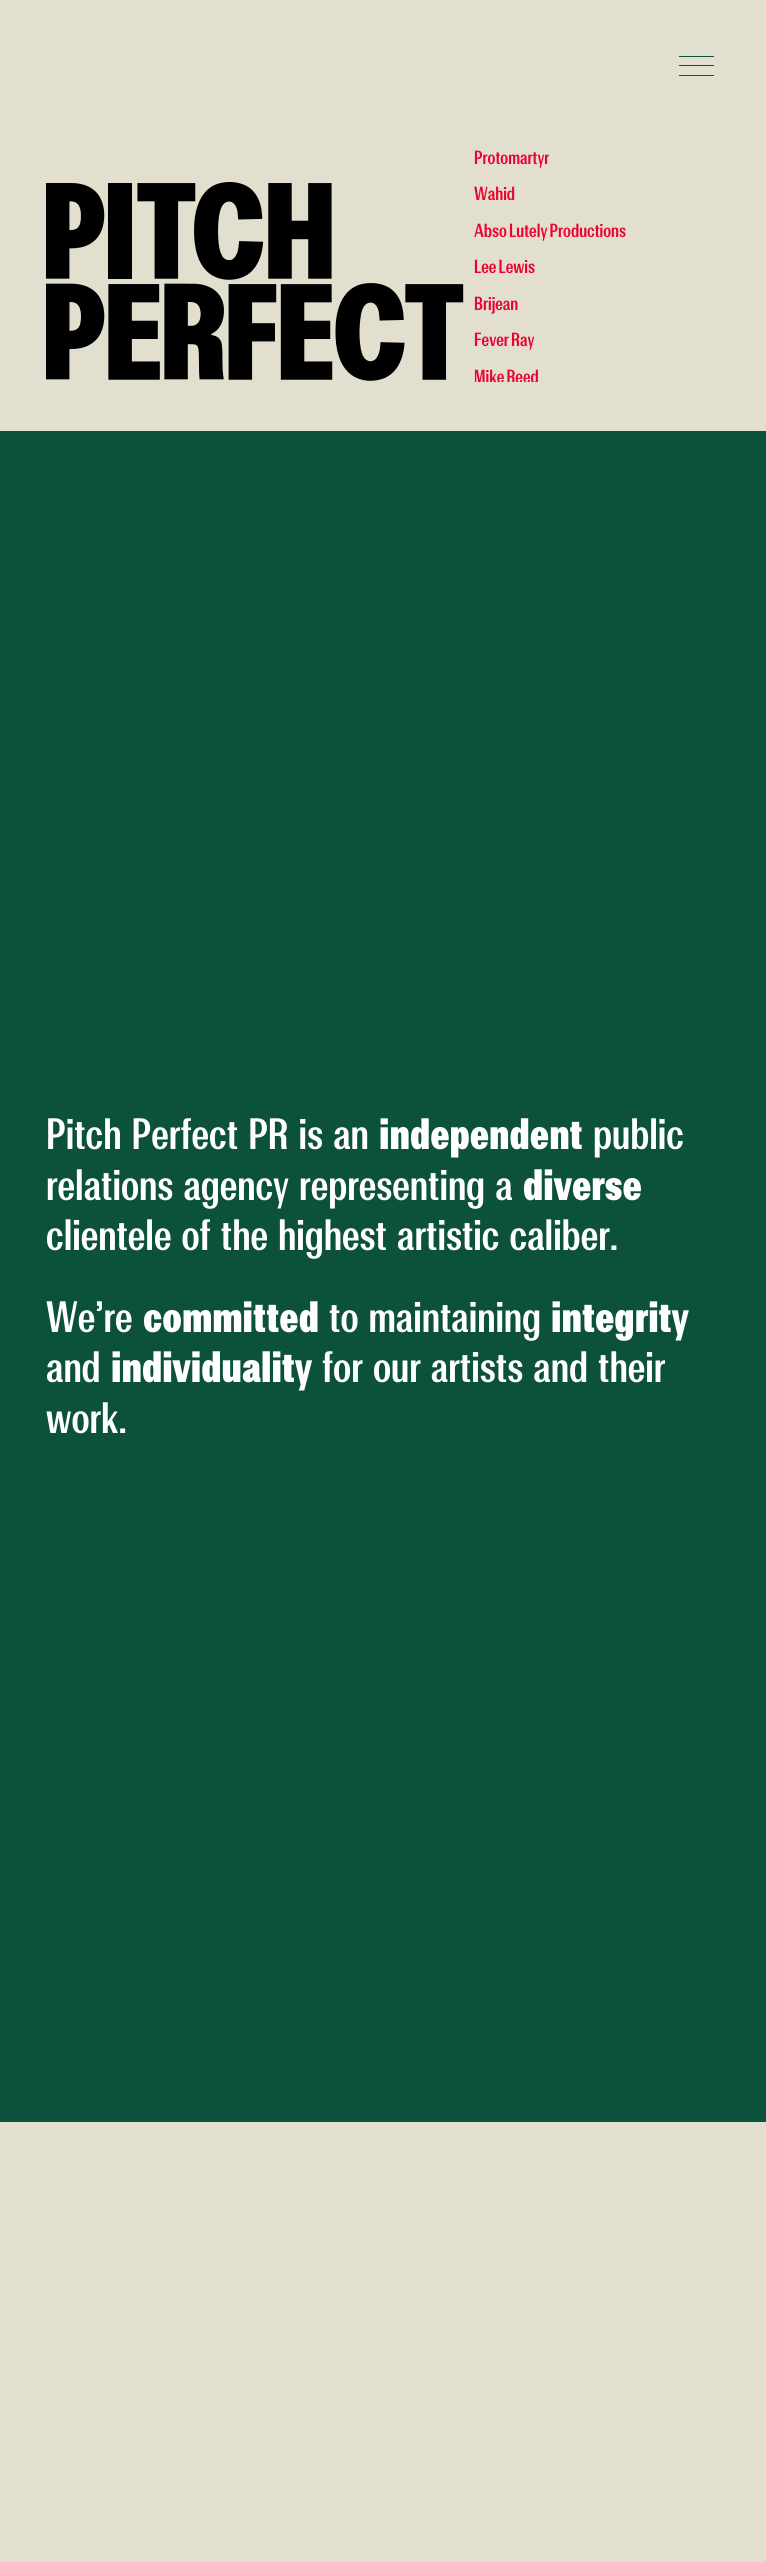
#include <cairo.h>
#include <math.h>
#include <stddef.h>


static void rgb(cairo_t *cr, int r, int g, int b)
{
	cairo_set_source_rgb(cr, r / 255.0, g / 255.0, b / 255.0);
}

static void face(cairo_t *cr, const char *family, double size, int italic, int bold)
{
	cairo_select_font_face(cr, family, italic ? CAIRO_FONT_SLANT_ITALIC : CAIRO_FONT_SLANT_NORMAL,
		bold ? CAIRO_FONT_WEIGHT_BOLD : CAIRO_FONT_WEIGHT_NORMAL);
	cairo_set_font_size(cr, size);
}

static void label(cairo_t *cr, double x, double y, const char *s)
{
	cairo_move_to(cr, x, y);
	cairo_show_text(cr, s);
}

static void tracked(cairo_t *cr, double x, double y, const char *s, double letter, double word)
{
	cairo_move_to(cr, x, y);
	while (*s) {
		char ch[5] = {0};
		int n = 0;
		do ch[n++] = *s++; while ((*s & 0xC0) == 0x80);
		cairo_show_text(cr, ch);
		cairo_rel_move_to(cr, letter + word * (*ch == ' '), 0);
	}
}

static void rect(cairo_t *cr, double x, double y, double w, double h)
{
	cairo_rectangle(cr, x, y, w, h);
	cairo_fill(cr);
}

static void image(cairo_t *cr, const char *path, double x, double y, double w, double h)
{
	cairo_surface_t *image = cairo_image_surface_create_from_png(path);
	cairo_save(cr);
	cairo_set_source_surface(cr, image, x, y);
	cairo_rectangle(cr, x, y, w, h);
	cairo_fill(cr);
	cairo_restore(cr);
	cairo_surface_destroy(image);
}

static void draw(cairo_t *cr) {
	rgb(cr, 227, 223, 207);
	cairo_paint(cr);
	rgb(cr, 12, 81, 60);
	rect(cr, 679, 56, 35, 1);
	rect(cr, 679, 65, 35, 1);
	rect(cr, 679, 75, 35, 1);
	image(cr, "image0.png", 46, 182, 418, 199);
	face(cr, "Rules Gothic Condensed", 17, 0, 1);
	rgb(cr, 235, 2, 48);
	label(cr, 474, 164, "Protomartyr");
	label(cr, 474, 200, "Wahid");
	label(cr, 474, 237, "Abso Lutely Productions");
	label(cr, 474, 273, "Lee Lewis");
	label(cr, 474, 310, "Brijean");
	label(cr, 474, 346, "Fever Ray");
	cairo_save(cr);
	cairo_rectangle(cr, 474, 132, 246, 250);
	cairo_clip(cr);
	label(cr, 474, 383, "Mike Reed");
	cairo_restore(cr);
	rgb(cr, 12, 81, 60);
	rect(cr, 0, 431, 766, 1691);
	face(cr, "Rules Gothic Condensed", 39.25, 0, 1);
	rgb(cr, 255, 255, 255);
	tracked(cr, 46, 1149, "Pitch Perfect PR is an", 0, 5);
	face(cr, "Rules Gothic Condensed Black", 39.25, 0, 0);
	label(cr, 379, 1149, "independent");
	face(cr, "Rules Gothic Condensed", 39.25, 0, 1);
	label(cr, 593, 1149, "public");
	tracked(cr, 46, 1200, "relations agency representing a", 0, 5);
	face(cr, "Rules Gothic Condensed Black", 39.25, 0, 0);
	label(cr, 523, 1200, "diverse");
	face(cr, "Rules Gothic Condensed", 39.25, 0, 1);
	tracked(cr, 46, 1250, "clientele of the highest artistic caliber.", 0, 5);
	label(cr, 46, 1332, "We’re");
	face(cr, "Rules Gothic Condensed Black", 39.25, 0, 0);
	label(cr, 143, 1332, "committed");
	face(cr, "Rules Gothic Condensed", 39.25, 0, 1);
	tracked(cr, 329, 1332, "to maintaining", 0, 5);
	face(cr, "Rules Gothic Condensed Black", 39.25, 0, 0);
	label(cr, 551, 1332, "integrity");
	face(cr, "Rules Gothic Condensed", 39.25, 0, 1);
	label(cr, 46, 1382, "and");
	face(cr, "Rules Gothic Condensed Black", 39.25, 0, 0);
	label(cr, 111, 1382, "individuality");
	face(cr, "Rules Gothic Condensed", 39.25, 0, 1);
	tracked(cr, 322, 1382, "for our artists and their", 0, 5);
	label(cr, 46, 1433, "work.");
}

int main(void) {
	cairo_surface_t *surface = cairo_image_surface_create(CAIRO_FORMAT_RGB24, 766, 2562);
	cairo_t *cr = cairo_create(surface);
	cairo_font_options_t *options = cairo_font_options_create();
	cairo_font_options_set_hint_metrics(options, CAIRO_HINT_METRICS_OFF);
	cairo_font_options_set_hint_style(options, CAIRO_HINT_STYLE_NONE);
	cairo_set_font_options(cr, options);
	cairo_set_miter_limit(cr, 4);
	draw(cr);
	cairo_surface_write_to_png(surface, "render.png");
	cairo_font_options_destroy(options);
	cairo_destroy(cr);
	cairo_surface_destroy(surface);
	return 0;
}
